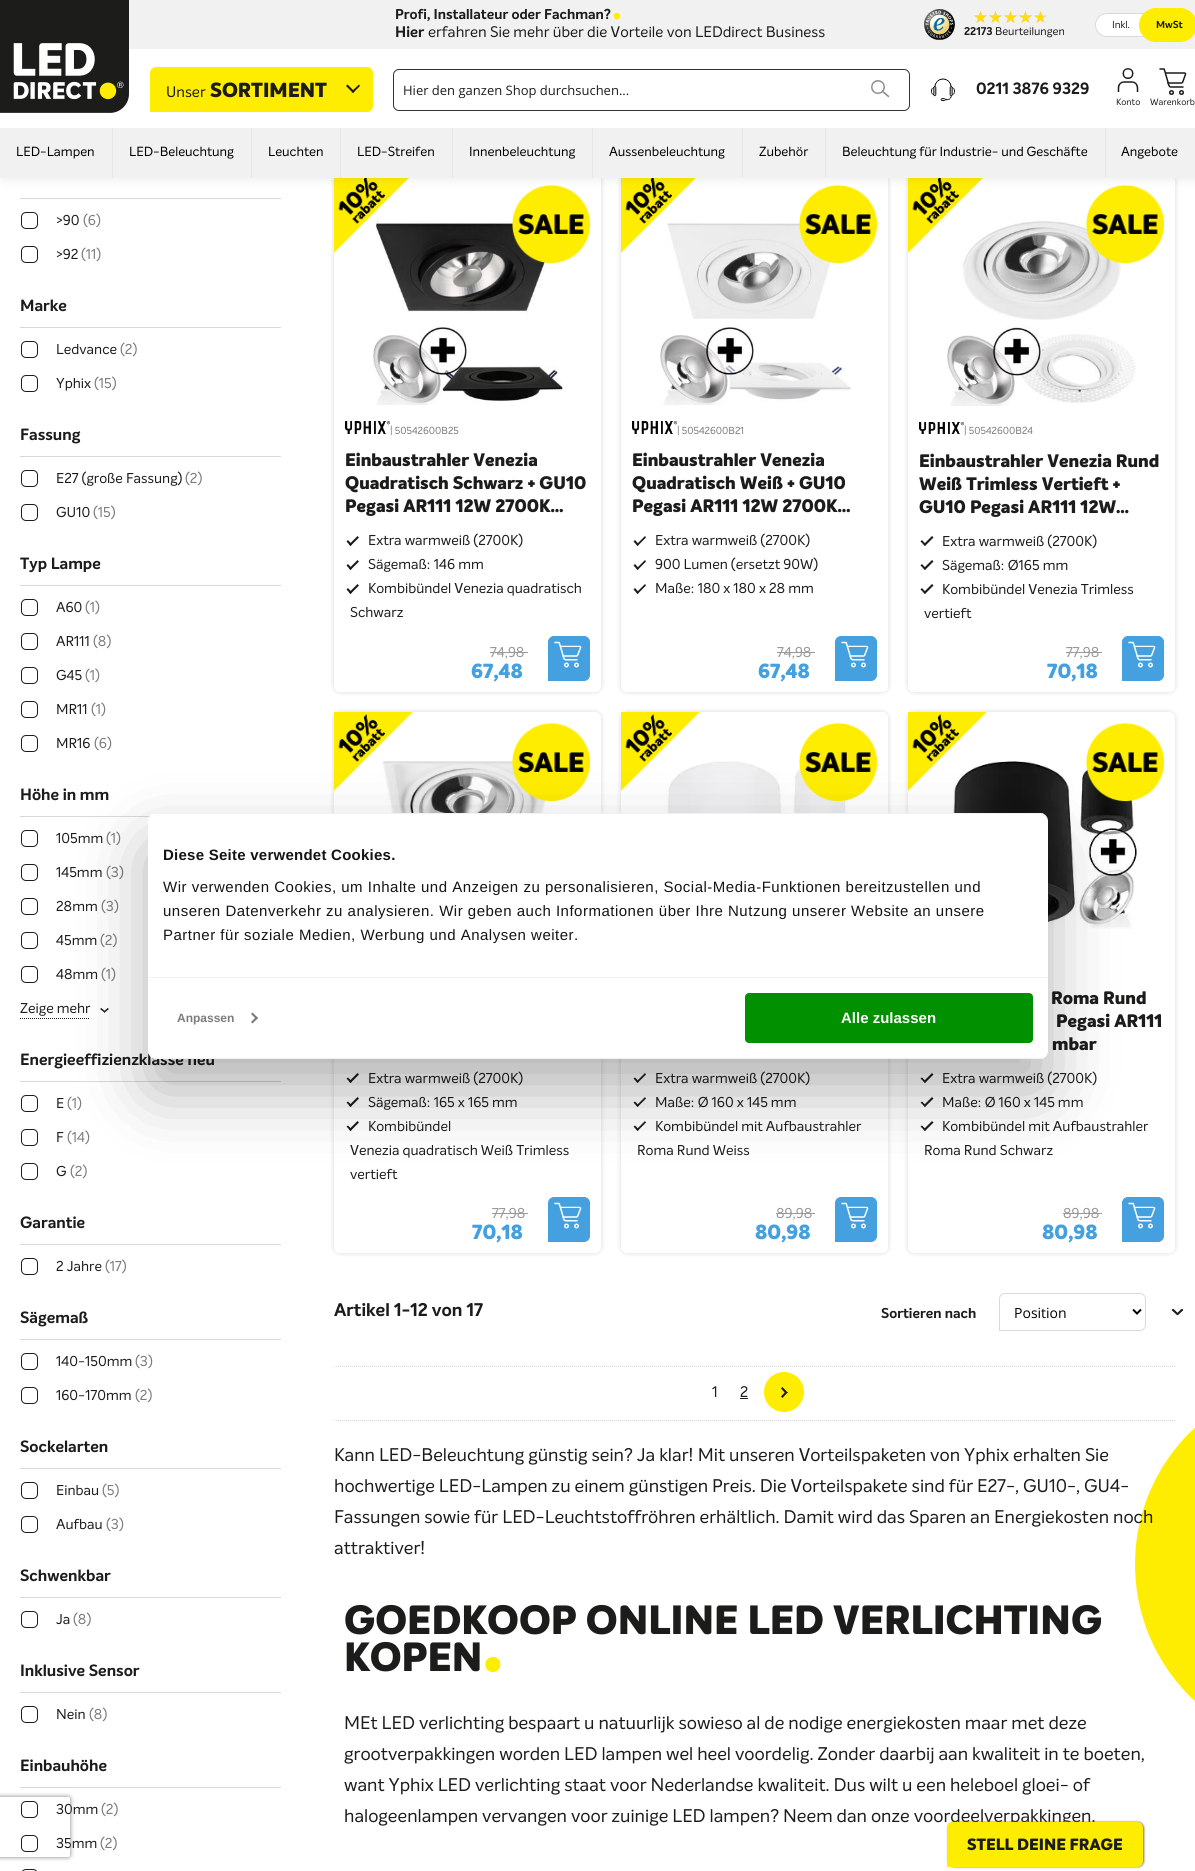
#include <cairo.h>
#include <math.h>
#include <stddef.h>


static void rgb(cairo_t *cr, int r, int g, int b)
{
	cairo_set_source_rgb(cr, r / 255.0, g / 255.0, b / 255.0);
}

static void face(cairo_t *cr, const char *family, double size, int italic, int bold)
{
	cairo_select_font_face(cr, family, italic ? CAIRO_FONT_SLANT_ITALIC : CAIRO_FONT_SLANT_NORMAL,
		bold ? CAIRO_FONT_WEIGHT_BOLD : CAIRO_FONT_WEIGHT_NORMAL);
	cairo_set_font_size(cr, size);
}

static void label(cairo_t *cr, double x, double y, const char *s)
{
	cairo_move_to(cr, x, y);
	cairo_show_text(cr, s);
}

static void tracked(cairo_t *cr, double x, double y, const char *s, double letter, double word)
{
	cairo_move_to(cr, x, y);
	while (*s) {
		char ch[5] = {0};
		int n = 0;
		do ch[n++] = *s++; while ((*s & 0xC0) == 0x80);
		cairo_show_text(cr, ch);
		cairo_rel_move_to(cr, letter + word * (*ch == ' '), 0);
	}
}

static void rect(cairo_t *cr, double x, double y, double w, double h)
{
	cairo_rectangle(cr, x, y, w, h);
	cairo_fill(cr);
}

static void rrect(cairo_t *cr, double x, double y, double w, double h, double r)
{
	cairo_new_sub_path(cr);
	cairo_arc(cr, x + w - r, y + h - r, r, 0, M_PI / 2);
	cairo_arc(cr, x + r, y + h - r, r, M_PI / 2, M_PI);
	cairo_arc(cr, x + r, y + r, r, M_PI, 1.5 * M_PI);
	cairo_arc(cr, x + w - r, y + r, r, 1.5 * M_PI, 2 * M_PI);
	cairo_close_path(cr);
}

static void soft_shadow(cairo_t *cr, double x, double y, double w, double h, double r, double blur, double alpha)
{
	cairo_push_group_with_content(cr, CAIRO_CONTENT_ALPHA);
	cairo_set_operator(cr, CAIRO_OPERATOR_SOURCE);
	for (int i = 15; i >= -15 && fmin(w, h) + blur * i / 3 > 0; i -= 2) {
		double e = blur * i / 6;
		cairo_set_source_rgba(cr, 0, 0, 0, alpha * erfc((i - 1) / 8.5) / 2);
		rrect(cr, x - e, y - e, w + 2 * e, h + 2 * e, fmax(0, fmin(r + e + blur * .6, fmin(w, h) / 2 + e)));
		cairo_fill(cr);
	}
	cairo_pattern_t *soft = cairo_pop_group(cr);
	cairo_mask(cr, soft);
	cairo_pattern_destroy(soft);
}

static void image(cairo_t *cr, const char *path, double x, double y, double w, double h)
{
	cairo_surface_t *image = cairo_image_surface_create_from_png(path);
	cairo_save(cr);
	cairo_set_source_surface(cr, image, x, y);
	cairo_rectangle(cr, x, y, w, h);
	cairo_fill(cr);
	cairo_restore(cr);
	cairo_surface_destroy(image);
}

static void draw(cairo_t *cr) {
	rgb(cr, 255, 255, 255);
	cairo_paint(cr);
	image(cr, "image0.png", 1135, 1427, 60, 274);
	rgb(cr, 0, 0, 0);
	soft_shadow(cr, 334, 174, 267, 518, 6, 2.5, 0.15);
	rgb(cr, 255, 255, 255);
	rrect(cr, 334, 174, 267, 518, 6);
	cairo_fill(cr);
	image(cr, "image13.png", 373, 220, 190, 185);
	image(cr, "image11.png", 334, 178, 76, 75);
	image(cr, "image12.png", 512, 185, 79, 79);
	rgb(cr, 0, 0, 0);
	soft_shadow(cr, 621, 174, 267, 518, 6, 2.5, 0.15);
	rgb(cr, 255, 255, 255);
	rrect(cr, 621, 174, 267, 518, 6);
	cairo_fill(cr);
	image(cr, "image18.png", 660, 223, 191, 182);
	image(cr, "image16.png", 621, 178, 76, 75);
	image(cr, "image17.png", 799, 185, 79, 79);
	rgb(cr, 0, 0, 0);
	soft_shadow(cr, 908, 174, 267, 518, 6, 2.5, 0.15);
	rgb(cr, 255, 255, 255);
	rrect(cr, 908, 174, 267, 518, 6);
	cairo_fill(cr);
	image(cr, "image21.png", 947, 221, 189, 185);
	image(cr, "image19.png", 908, 178, 76, 75);
	image(cr, "image20.png", 1086, 185, 79, 79);
	rgb(cr, 0, 0, 0);
	soft_shadow(cr, 3, 0, 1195, 178, 0, 5.5, 0.1);
	rgb(cr, 255, 255, 255);
	rect(cr, 0, 49, 1195, 79);
	rgb(cr, 241, 241, 241);
	rect(cr, 129, 0, 1066, 49);
	face(cr, "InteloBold", 14, 0, 1);
	rgb(cr, 28, 28, 27);
	label(cr, 395, 19, "Profi, Installateur oder Fachman?");
	face(cr, "InteloBold", 42, 0, 1);
	rgb(cr, 255, 237, 0);
	label(cr, 612, 19, ".");
	face(cr, "InteloBold", 15, 0, 1);
	rgb(cr, 28, 28, 27);
	label(cr, 395, 37, "Hier");
	face(cr, "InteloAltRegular", 15, 0, 0);
	label(cr, 428, 37, "erfahren Sie mehr über die Vorteile von LEDdirect Business");
	rgb(cr, 255, 255, 255);
	rrect(cr, 1095.5, 13.5, 99, 23, 11.5);
	cairo_fill_preserve(cr);
	rgb(cr, 218, 217, 215);
	cairo_set_line_width(cr, 1);
	cairo_stroke(cr);
	face(cr, "InteloAltRegular", 10, 0, 0);
	rgb(cr, 28, 28, 27);
	label(cr, 1112, 28, "Inkl.");
	rgb(cr, 255, 237, 0);
	rrect(cr, 1139, 8, 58, 34, 17);
	cairo_fill(cr);
	face(cr, "InteloBold", 10, 0, 1);
	rgb(cr, 28, 28, 27);
	label(cr, 1156, 28, "MwSt");
	image(cr, "image1.png", 924, 9, 31, 31);
	image(cr, "image2.png", 974, 11, 13, 12);
	image(cr, "image2.png", 989, 11, 13, 12);
	image(cr, "image2.png", 1004, 11, 13, 12);
	image(cr, "image2.png", 1019, 11, 13, 12);
	image(cr, "image2.png", 1034, 11, 13, 12);
	image(cr, "image3.png", 974, 11, 13, 12);
	image(cr, "image3.png", 989, 11, 13, 12);
	image(cr, "image3.png", 1004, 11, 13, 12);
	image(cr, "image3.png", 1019, 11, 13, 12);
	image(cr, "image4.png", 1034, 11, 9, 12);
	face(cr, "InteloBold", 11, 0, 1);
	label(cr, 964, 35, "22173");
	face(cr, "InteloAltRegular", 11, 0, 0);
	label(cr, 995, 35, "Beurteilungen");
	image(cr, "image5.png", 0, 0, 129, 113);
	rgb(cr, 255, 237, 0);
	cairo_new_path(cr);
	cairo_move_to(cr, 156, 67.5);
	cairo_line_to(cr, 367, 67.5);
	cairo_curve_to(cr, 370, 67.5, 372.5, 70, 372.5, 73);
	cairo_line_to(cr, 372.5, 106);
	cairo_curve_to(cr, 372.5, 109, 370, 111.5, 367, 111.5);
	cairo_line_to(cr, 150.5, 111.5);
	cairo_line_to(cr, 150.5, 73);
	cairo_curve_to(cr, 150.5, 70, 153, 67.5, 156, 67.5);
	cairo_close_path(cr);
	cairo_fill_preserve(cr);
	cairo_stroke(cr);
	face(cr, "InteloAltRegular", 15, 0, 0);
	rgb(cr, 28, 28, 27);
	label(cr, 166, 97, "Unser");
	face(cr, "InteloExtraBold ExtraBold", 20, 0, 0);
	label(cr, 210, 97, "SORTIMENT");
	cairo_new_path(cr);
	cairo_move_to(cr, 359, 84.5);
	cairo_line_to(cr, 360, 86);
	cairo_line_to(cr, 353, 93);
	cairo_line_to(cr, 351.5, 91.5);
	cairo_close_path(cr);
	cairo_fill(cr);
	cairo_new_path(cr);
	cairo_move_to(cr, 347.5, 84.5);
	cairo_line_to(cr, 354.5, 91.5);
	cairo_line_to(cr, 353, 93);
	cairo_line_to(cr, 346, 86);
	cairo_close_path(cr);
	cairo_fill(cr);
	rrect(cr, 393.5, 69.5, 516, 41, 5.5);
	rgb(cr, 51, 51, 51);
	cairo_stroke(cr);
	face(cr, "Open Sans", 13, 0, 0);
	rgb(cr, 28, 28, 27);
	label(cr, 403, 95, "Hier den ganzen Shop durchsuchen...");
	image(cr, "image6.png", 871, 80, 19, 18);
	image(cr, "image7.png", 931, 78, 24, 24);
	face(cr, "InteloBold", 16, 0, 1);
	label(cr, 976, 94, "0211 3876 9329");
	image(cr, "image8.png", 1117, 68, 22, 24);
	face(cr, "InteloAltRegular", 9, 0, 0);
	label(cr, 1116, 105, "Konto");
	image(cr, "image9.png", 1159, 68, 28, 27);
	label(cr, 1150, 105, "Warenkorb");
	rgb(cr, 241, 241, 241);
	rect(cr, 0, 128, 1195, 50);
	rgb(cr, 233, 230, 230);
	rect(cr, 112, 128, 1, 50);
	face(cr, "InteloAltRegular", 13, 0, 0);
	rgb(cr, 0, 0, 0);
	label(cr, 16, 156, "LED-Lampen");
	rgb(cr, 233, 230, 230);
	rect(cr, 251, 128, 1, 50);
	rgb(cr, 0, 0, 0);
	label(cr, 129, 156, "LED-Beleuchtung");
	rgb(cr, 233, 230, 230);
	rect(cr, 340, 128, 1, 50);
	rgb(cr, 0, 0, 0);
	label(cr, 268, 156, "Leuchten");
	rgb(cr, 233, 230, 230);
	rect(cr, 452, 128, 1, 50);
	rgb(cr, 0, 0, 0);
	label(cr, 357, 156, "LED-Streifen");
	rgb(cr, 233, 230, 230);
	rect(cr, 592, 128, 1, 50);
	rgb(cr, 0, 0, 0);
	label(cr, 469, 156, "Innenbeleuchtung");
	rgb(cr, 233, 230, 230);
	rect(cr, 742, 128, 1, 50);
	rgb(cr, 0, 0, 0);
	label(cr, 609, 156, "Aussenbeleuchtung");
	rgb(cr, 233, 230, 230);
	rect(cr, 825, 128, 1, 50);
	rgb(cr, 0, 0, 0);
	label(cr, 759, 156, "Zubehör");
	rgb(cr, 233, 230, 230);
	rect(cr, 1105, 128, 1, 50);
	rgb(cr, 0, 0, 0);
	label(cr, 842, 156, "Beleuchtung für Industrie- und Geschäfte");
	label(cr, 1121, 156, "Angebote");
	rgb(cr, 218, 217, 215);
	rect(cr, 20, 198, 261, 1);
	rrect(cr, 21.5, 212.5, 16, 16, 4.5);
	rgb(cr, 28, 28, 27);
	cairo_stroke(cr);
	face(cr, "InteloAltRegular", 14, 0, 0);
	label(cr, 56, 225, ">90");
	rgb(cr, 124, 124, 124);
	label(cr, 83, 225, "(6)");
	rrect(cr, 21.5, 246.5, 16, 16, 4.5);
	rgb(cr, 28, 28, 27);
	cairo_stroke(cr);
	label(cr, 56, 259, ">92");
	rgb(cr, 124, 124, 124);
	label(cr, 81, 259, "(11)");
	rgb(cr, 218, 217, 215);
	rect(cr, 20, 327, 261, 1);
	face(cr, "InteloBold", 16, 0, 1);
	rgb(cr, 28, 28, 27);
	label(cr, 20, 311, "Marke");
	rrect(cr, 21.5, 341.5, 16, 16, 4.5);
	cairo_stroke(cr);
	face(cr, "InteloAltRegular", 14, 0, 0);
	label(cr, 56, 354, "Ledvance");
	rgb(cr, 124, 124, 124);
	label(cr, 120, 354, "(2)");
	rrect(cr, 21.5, 375.5, 16, 16, 4.5);
	rgb(cr, 28, 28, 27);
	cairo_stroke(cr);
	label(cr, 56, 388, "Yphix");
	rgb(cr, 124, 124, 124);
	label(cr, 94, 388, "(15)");
	rgb(cr, 218, 217, 215);
	rect(cr, 20, 456, 261, 1);
	face(cr, "InteloBold", 16, 0, 1);
	rgb(cr, 28, 28, 27);
	label(cr, 20, 440, "Fassung");
	rrect(cr, 21.5, 470.5, 16, 16, 4.5);
	cairo_stroke(cr);
	face(cr, "InteloAltRegular", 14, 0, 0);
	label(cr, 56, 483, "E27 (große Fassung)");
	rgb(cr, 124, 124, 124);
	label(cr, 185, 483, "(2)");
	rrect(cr, 21.5, 504.5, 16, 16, 4.5);
	rgb(cr, 28, 28, 27);
	cairo_stroke(cr);
	label(cr, 56, 517, "GU10");
	rgb(cr, 124, 124, 124);
	label(cr, 93, 517, "(15)");
	rgb(cr, 218, 217, 215);
	rect(cr, 20, 585, 261, 1);
	face(cr, "InteloBold", 16, 0, 1);
	rgb(cr, 28, 28, 27);
	label(cr, 20, 569, "Typ Lampe");
	rrect(cr, 21.5, 599.5, 16, 16, 4.5);
	cairo_stroke(cr);
	face(cr, "InteloAltRegular", 14, 0, 0);
	label(cr, 56, 612, "A60");
	rgb(cr, 124, 124, 124);
	label(cr, 85, 612, "(1)");
	rrect(cr, 21.5, 633.5, 16, 16, 4.5);
	rgb(cr, 28, 28, 27);
	cairo_stroke(cr);
	label(cr, 56, 646, "AR111");
	rgb(cr, 124, 124, 124);
	label(cr, 93, 646, "(8)");
	rrect(cr, 21.5, 667.5, 16, 16, 4.5);
	rgb(cr, 28, 28, 27);
	cairo_stroke(cr);
	label(cr, 56, 680, "G45");
	rgb(cr, 124, 124, 124);
	label(cr, 85, 680, "(1)");
	rrect(cr, 21.5, 701.5, 16, 16, 4.5);
	rgb(cr, 28, 28, 27);
	cairo_stroke(cr);
	label(cr, 56, 714, "MR11");
	rgb(cr, 124, 124, 124);
	label(cr, 91, 714, "(1)");
	rrect(cr, 21.5, 735.5, 16, 16, 4.5);
	rgb(cr, 28, 28, 27);
	cairo_stroke(cr);
	label(cr, 56, 748, "MR16");
	rgb(cr, 124, 124, 124);
	label(cr, 94, 748, "(6)");
	rgb(cr, 218, 217, 215);
	rect(cr, 20, 816, 130, 1);
	face(cr, "InteloBold", 16, 0, 1);
	rgb(cr, 28, 28, 27);
	label(cr, 20, 800, "Höhe in mm");
	rrect(cr, 21.5, 830.5, 16, 16, 4.5);
	cairo_stroke(cr);
	face(cr, "InteloAltRegular", 14, 0, 0);
	label(cr, 56, 843, "105mm");
	rgb(cr, 124, 124, 124);
	label(cr, 106, 843, "(1)");
	rrect(cr, 21.5, 864.5, 16, 16, 4.5);
	rgb(cr, 28, 28, 27);
	cairo_stroke(cr);
	label(cr, 56, 877, "145mm");
	rgb(cr, 124, 124, 124);
	label(cr, 106, 877, "(3)");
	rrect(cr, 21.5, 898.5, 16, 16, 4.5);
	rgb(cr, 28, 28, 27);
	cairo_stroke(cr);
	label(cr, 56, 911, "28mm");
	rgb(cr, 124, 124, 124);
	label(cr, 101, 911, "(3)");
	rrect(cr, 21.5, 932.5, 16, 16, 4.5);
	rgb(cr, 28, 28, 27);
	cairo_stroke(cr);
	label(cr, 56, 945, "45mm");
	rgb(cr, 124, 124, 124);
	label(cr, 100, 945, "(2)");
	rrect(cr, 21.5, 966.5, 16, 16, 4.5);
	rgb(cr, 28, 28, 27);
	cairo_stroke(cr);
	label(cr, 56, 979, "48mm");
	rgb(cr, 124, 124, 124);
	label(cr, 101, 979, "(1)");
	rgb(cr, 28, 28, 27);
	label(cr, 20, 1013, "Zeige mehr");
	cairo_new_path(cr);
	cairo_move_to(cr, 20, 1018.5);
	cairo_line_to(cr, 90, 1018.5);
	cairo_set_dash(cr, (double[]){1, 1}, 2, 0);
	cairo_stroke(cr);
	image(cr, "image10.png", 100, 1008, 9, 5);
	rgb(cr, 218, 217, 215);
	rect(cr, 20, 1081, 261, 1);
	face(cr, "InteloBold", 16, 0, 1);
	rgb(cr, 28, 28, 27);
	label(cr, 20, 1065, "Energieeffizienzklasse neu");
	rrect(cr, 21.5, 1095.5, 16, 16, 4.5);
	cairo_set_dash(cr, NULL, 0, 0);
	cairo_stroke(cr);
	face(cr, "InteloAltRegular", 14, 0, 0);
	label(cr, 56, 1108, "E");
	rgb(cr, 124, 124, 124);
	label(cr, 67, 1108, "(1)");
	rrect(cr, 21.5, 1129.5, 16, 16, 4.5);
	rgb(cr, 28, 28, 27);
	cairo_stroke(cr);
	label(cr, 56, 1142, "F");
	rgb(cr, 124, 124, 124);
	label(cr, 67, 1142, "(14)");
	rrect(cr, 21.5, 1163.5, 16, 16, 4.5);
	rgb(cr, 28, 28, 27);
	cairo_stroke(cr);
	label(cr, 56, 1176, "G");
	rgb(cr, 124, 124, 124);
	label(cr, 70, 1176, "(2)");
	rgb(cr, 218, 217, 215);
	rect(cr, 20, 1244, 261, 1);
	face(cr, "InteloBold", 16, 0, 1);
	rgb(cr, 28, 28, 27);
	label(cr, 20, 1228, "Garantie");
	rrect(cr, 21.5, 1258.5, 16, 16, 4.5);
	cairo_stroke(cr);
	face(cr, "InteloAltRegular", 14, 0, 0);
	label(cr, 56, 1271, "2 Jahre");
	rgb(cr, 124, 124, 124);
	label(cr, 105, 1271, "(17)");
	rgb(cr, 218, 217, 215);
	rect(cr, 20, 1339, 261, 1);
	face(cr, "InteloBold", 16, 0, 1);
	rgb(cr, 28, 28, 27);
	label(cr, 20, 1323, "Sägemaß");
	rrect(cr, 21.5, 1353.5, 16, 16, 4.5);
	cairo_stroke(cr);
	face(cr, "InteloAltRegular", 14, 0, 0);
	label(cr, 56, 1366, "140-150mm");
	rgb(cr, 124, 124, 124);
	label(cr, 135, 1366, "(3)");
	rrect(cr, 21.5, 1387.5, 16, 16, 4.5);
	rgb(cr, 28, 28, 27);
	cairo_stroke(cr);
	label(cr, 56, 1400, "160-170mm");
	rgb(cr, 124, 124, 124);
	label(cr, 135, 1400, "(2)");
	rgb(cr, 218, 217, 215);
	rect(cr, 20, 1468, 261, 1);
	face(cr, "InteloBold", 16, 0, 1);
	rgb(cr, 28, 28, 27);
	label(cr, 20, 1452, "Sockelarten");
	rrect(cr, 21.5, 1482.5, 16, 16, 4.5);
	cairo_stroke(cr);
	face(cr, "InteloAltRegular", 14, 0, 0);
	label(cr, 56, 1495, "Einbau");
	rgb(cr, 124, 124, 124);
	label(cr, 102, 1495, "(5)");
	rrect(cr, 21.5, 1516.5, 16, 16, 4.5);
	rgb(cr, 28, 28, 27);
	cairo_stroke(cr);
	label(cr, 56, 1529, "Aufbau");
	rgb(cr, 124, 124, 124);
	label(cr, 106, 1529, "(3)");
	rgb(cr, 218, 217, 215);
	rect(cr, 20, 1597, 261, 1);
	face(cr, "InteloBold", 16, 0, 1);
	rgb(cr, 28, 28, 27);
	label(cr, 20, 1581, "Schwenkbar");
	rrect(cr, 21.5, 1611.5, 16, 16, 4.5);
	cairo_stroke(cr);
	face(cr, "InteloAltRegular", 14, 0, 0);
	label(cr, 56, 1624, "Ja");
	rgb(cr, 124, 124, 124);
	label(cr, 73, 1624, "(8)");
	rgb(cr, 218, 217, 215);
	rect(cr, 20, 1692, 261, 1);
	face(cr, "InteloBold", 16, 0, 1);
	rgb(cr, 28, 28, 27);
	label(cr, 20, 1676, "Inklusive Sensor");
	rrect(cr, 21.5, 1706.5, 16, 16, 4.5);
	cairo_stroke(cr);
	face(cr, "InteloAltRegular", 14, 0, 0);
	label(cr, 56, 1719, "Nein");
	rgb(cr, 124, 124, 124);
	label(cr, 89, 1719, "(8)");
	rgb(cr, 218, 217, 215);
	rect(cr, 20, 1787, 261, 1);
	face(cr, "InteloBold", 16, 0, 1);
	rgb(cr, 28, 28, 27);
	label(cr, 20, 1771, "Einbauhöhe");
	rrect(cr, 21.5, 1801.5, 16, 16, 4.5);
	cairo_stroke(cr);
	face(cr, "InteloAltRegular", 14, 0, 0);
	label(cr, 56, 1814, "30mm");
	rgb(cr, 124, 124, 124);
	label(cr, 101, 1814, "(2)");
	rrect(cr, 21.5, 1835.5, 16, 16, 4.5);
	rgb(cr, 28, 28, 27);
	cairo_stroke(cr);
	label(cr, 56, 1848, "35mm");
	rgb(cr, 124, 124, 124);
	label(cr, 100, 1848, "(2)");
	rrect(cr, 21.5, 1869.5, 16, 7, 4.5);
	rgb(cr, 28, 28, 27);
	cairo_stroke(cr);
	image(cr, "image14.png", 345, 421, 45, 13);
	face(cr, "InteloAltRegular", 10, 0, 0);
	rgb(cr, 124, 124, 124);
	label(cr, 390, 434, "| 50542600B25");
	face(cr, "InteloExtraBold ExtraBold", 17.75, 0, 0);
	rgb(cr, 28, 28, 27);
	label(cr, 345, 466, "Einbaustrahler Venezia");
	label(cr, 345, 489, "Quadratisch Schwarz + GU10");
	label(cr, 345, 512, "Pegasi AR111 12W 2700K…");
	cairo_new_path(cr);
	cairo_move_to(cr, 357.5, 536);
	cairo_line_to(cr, 359, 537.5);
	cairo_line_to(cr, 350.5, 546);
	cairo_line_to(cr, 349, 544.5);
	cairo_close_path(cr);
	cairo_fill(cr);
	cairo_new_path(cr);
	cairo_move_to(cr, 348, 540);
	cairo_line_to(cr, 352, 544.5);
	cairo_line_to(cr, 350.5, 546);
	cairo_line_to(cr, 346.5, 541.5);
	cairo_close_path(cr);
	cairo_move_to(cr, 357.5, 560);
	cairo_line_to(cr, 359, 561.5);
	cairo_line_to(cr, 350.5, 570);
	cairo_line_to(cr, 349, 568.5);
	cairo_close_path(cr);
	cairo_fill(cr);
	face(cr, "InteloAltRegular", 14, 0, 0);
	label(cr, 368, 545, "Extra warmweiß (2700K)");
	cairo_new_path(cr);
	cairo_move_to(cr, 348, 564);
	cairo_line_to(cr, 352, 568.5);
	cairo_line_to(cr, 350.5, 570);
	cairo_line_to(cr, 346.5, 565.5);
	cairo_close_path(cr);
	cairo_move_to(cr, 357.5, 584);
	cairo_line_to(cr, 359, 585.5);
	cairo_line_to(cr, 350.5, 594);
	cairo_line_to(cr, 349, 592.5);
	cairo_close_path(cr);
	cairo_fill(cr);
	label(cr, 368, 569, "Sägemaß: 146 mm");
	cairo_new_path(cr);
	cairo_move_to(cr, 348, 588);
	cairo_line_to(cr, 352, 592.5);
	cairo_line_to(cr, 350.5, 594);
	cairo_line_to(cr, 346.5, 589.5);
	cairo_close_path(cr);
	cairo_fill(cr);
	label(cr, 368, 593, "Kombibündel Venezia quadratisch");
	label(cr, 350, 617, "Schwarz");
	rgb(cr, 153, 153, 153);
	label(cr, 490, 657, "74,98");
	rect(cr, 490, 652, 38, 1);
	face(cr, "InteloExtraBold ExtraBold", 20, 0, 0);
	rgb(cr, 69, 160, 223);
	label(cr, 471, 678, "67,48");
	cairo_new_path(cr);
	cairo_move_to(cr, 554, 636.5);
	cairo_line_to(cr, 584, 636.5);
	cairo_curve_to(cr, 587, 636.5, 589.5, 639, 589.5, 642);
	cairo_line_to(cr, 589.5, 675);
	cairo_curve_to(cr, 589.5, 678, 587, 680.5, 584, 680.5);
	cairo_line_to(cr, 548.5, 680.5);
	cairo_line_to(cr, 548.5, 642);
	cairo_curve_to(cr, 548.5, 639, 551, 636.5, 554, 636.5);
	cairo_close_path(cr);
	cairo_fill_preserve(cr);
	cairo_stroke(cr);
	image(cr, "image15.png", 554, 641, 28, 27);
	image(cr, "image14.png", 632, 421, 45, 13);
	face(cr, "InteloAltRegular", 10, 0, 0);
	rgb(cr, 124, 124, 124);
	label(cr, 677, 434, "| 50542600B21");
	face(cr, "InteloExtraBold ExtraBold", 17.75, 0, 0);
	rgb(cr, 28, 28, 27);
	label(cr, 632, 466, "Einbaustrahler Venezia");
	label(cr, 632, 489, "Quadratisch Weiß + GU10");
	label(cr, 632, 512, "Pegasi AR111 12W 2700K…");
	cairo_new_path(cr);
	cairo_move_to(cr, 645, 536);
	cairo_line_to(cr, 646, 537.5);
	cairo_line_to(cr, 637.5, 546);
	cairo_line_to(cr, 636.5, 544.5);
	cairo_close_path(cr);
	cairo_fill(cr);
	cairo_new_path(cr);
	cairo_move_to(cr, 635, 540);
	cairo_line_to(cr, 639, 544.5);
	cairo_line_to(cr, 637.5, 546);
	cairo_line_to(cr, 633.5, 541.5);
	cairo_close_path(cr);
	cairo_move_to(cr, 645, 560);
	cairo_line_to(cr, 646, 561.5);
	cairo_line_to(cr, 637.5, 570);
	cairo_line_to(cr, 636.5, 568.5);
	cairo_close_path(cr);
	cairo_fill(cr);
	face(cr, "InteloAltRegular", 14, 0, 0);
	label(cr, 655, 545, "Extra warmweiß (2700K)");
	cairo_new_path(cr);
	cairo_move_to(cr, 635, 564);
	cairo_line_to(cr, 639, 568.5);
	cairo_line_to(cr, 637.5, 570);
	cairo_line_to(cr, 633.5, 565.5);
	cairo_close_path(cr);
	cairo_move_to(cr, 645, 584);
	cairo_line_to(cr, 646, 585.5);
	cairo_line_to(cr, 637.5, 594);
	cairo_line_to(cr, 636.5, 592.5);
	cairo_close_path(cr);
	cairo_fill(cr);
	label(cr, 655, 569, "900 Lumen (ersetzt 90W)");
	cairo_new_path(cr);
	cairo_move_to(cr, 635, 588);
	cairo_line_to(cr, 639, 592.5);
	cairo_line_to(cr, 637.5, 594);
	cairo_line_to(cr, 633.5, 589.5);
	cairo_close_path(cr);
	cairo_fill(cr);
	label(cr, 655, 593, "Maße: 180 x 180 x 28 mm");
	rgb(cr, 153, 153, 153);
	label(cr, 777, 657, "74,98");
	rect(cr, 777, 652, 38, 1);
	face(cr, "InteloExtraBold ExtraBold", 20, 0, 0);
	rgb(cr, 69, 160, 223);
	label(cr, 758, 678, "67,48");
	cairo_new_path(cr);
	cairo_move_to(cr, 841, 636.5);
	cairo_line_to(cr, 871, 636.5);
	cairo_curve_to(cr, 874, 636.5, 876.5, 639, 876.5, 642);
	cairo_line_to(cr, 876.5, 675);
	cairo_curve_to(cr, 876.5, 678, 874, 680.5, 871, 680.5);
	cairo_line_to(cr, 835.5, 680.5);
	cairo_line_to(cr, 835.5, 642);
	cairo_curve_to(cr, 835.5, 639, 838, 636.5, 841, 636.5);
	cairo_close_path(cr);
	cairo_fill_preserve(cr);
	cairo_stroke(cr);
	image(cr, "image15.png", 841, 641, 28, 27);
	image(cr, "image22.png", 919, 422, 45, 12);
	face(cr, "InteloAltRegular", 10, 0, 0);
	rgb(cr, 124, 124, 124);
	label(cr, 964, 434, "| 50542600B24");
	face(cr, "InteloExtraBold ExtraBold", 17.75, 0, 0);
	rgb(cr, 28, 28, 27);
	label(cr, 919, 467, "Einbaustrahler Venezia Rund");
	label(cr, 919, 490, "Weiß Trimless Vertieft +");
	label(cr, 919, 513, "GU10 Pegasi AR111 12W…");
	cairo_new_path(cr);
	cairo_move_to(cr, 932, 536);
	cairo_line_to(cr, 933.5, 537.5);
	cairo_line_to(cr, 925, 546);
	cairo_line_to(cr, 923.5, 544.5);
	cairo_close_path(cr);
	cairo_fill(cr);
	cairo_new_path(cr);
	cairo_move_to(cr, 922, 540);
	cairo_line_to(cr, 926, 544.5);
	cairo_line_to(cr, 925, 546);
	cairo_line_to(cr, 920.5, 541.5);
	cairo_close_path(cr);
	cairo_move_to(cr, 932, 560);
	cairo_line_to(cr, 933.5, 561.5);
	cairo_line_to(cr, 925, 570);
	cairo_line_to(cr, 923.5, 568.5);
	cairo_close_path(cr);
	cairo_fill(cr);
	face(cr, "InteloAltRegular", 14, 0, 0);
	label(cr, 942, 546, "Extra warmweiß (2700K)");
	cairo_new_path(cr);
	cairo_move_to(cr, 922, 564);
	cairo_line_to(cr, 926, 568.5);
	cairo_line_to(cr, 925, 570);
	cairo_line_to(cr, 920.5, 565.5);
	cairo_close_path(cr);
	cairo_move_to(cr, 932, 584);
	cairo_line_to(cr, 933.5, 585.5);
	cairo_line_to(cr, 925, 594);
	cairo_line_to(cr, 923.5, 592.5);
	cairo_close_path(cr);
	cairo_fill(cr);
	label(cr, 942, 570, "Sägemaß: Ø165 mm");
	cairo_new_path(cr);
	cairo_move_to(cr, 922, 588);
	cairo_line_to(cr, 926, 592.5);
	cairo_line_to(cr, 925, 594);
	cairo_line_to(cr, 920.5, 589.5);
	cairo_close_path(cr);
	cairo_fill(cr);
	label(cr, 942, 594, "Kombibündel Venezia Trimless");
	label(cr, 924, 618, "vertieft");
	rgb(cr, 153, 153, 153);
	label(cr, 1066, 657, "77,98");
	rect(cr, 1066, 652, 36, 1);
	face(cr, "InteloExtraBold ExtraBold", 20, 0, 0);
	rgb(cr, 69, 160, 223);
	label(cr, 1047, 678, "70,18");
	cairo_new_path(cr);
	cairo_move_to(cr, 1128, 636.5);
	cairo_line_to(cr, 1158, 636.5);
	cairo_curve_to(cr, 1161, 636.5, 1163.5, 639, 1163.5, 642);
	cairo_line_to(cr, 1163.5, 675);
	cairo_curve_to(cr, 1163.5, 678, 1161, 680.5, 1158, 680.5);
	cairo_line_to(cr, 1122.5, 680.5);
	cairo_line_to(cr, 1122.5, 642);
	cairo_curve_to(cr, 1122.5, 639, 1125, 636.5, 1128, 636.5);
	cairo_close_path(cr);
	cairo_fill_preserve(cr);
	cairo_stroke(cr);
	image(cr, "image15.png", 1128, 641, 28, 27);
	rgb(cr, 0, 0, 0);
	soft_shadow(cr, 334, 712, 267, 541, 6, 2.5, 0.15);
	rgb(cr, 255, 255, 255);
	rrect(cr, 334, 712, 267, 541, 6);
	cairo_fill(cr);
	image(cr, "image25.png", 373, 761, 191, 52);
	image(cr, "image23.png", 334, 712, 79, 79);
	image(cr, "image24.png", 512, 723, 79, 79);
	rgb(cr, 28, 28, 27);
	cairo_new_path(cr);
	cairo_move_to(cr, 357.5, 1073);
	cairo_line_to(cr, 359, 1074.5);
	cairo_line_to(cr, 350.5, 1083);
	cairo_line_to(cr, 349, 1081.5);
	cairo_close_path(cr);
	cairo_fill(cr);
	cairo_new_path(cr);
	cairo_move_to(cr, 348, 1077.5);
	cairo_line_to(cr, 352, 1081.5);
	cairo_line_to(cr, 350.5, 1083);
	cairo_line_to(cr, 346.5, 1078.5);
	cairo_close_path(cr);
	cairo_move_to(cr, 357.5, 1097);
	cairo_line_to(cr, 359, 1098.5);
	cairo_line_to(cr, 350.5, 1107);
	cairo_line_to(cr, 349, 1105.5);
	cairo_close_path(cr);
	cairo_fill(cr);
	face(cr, "InteloAltRegular", 14, 0, 0);
	label(cr, 368, 1083, "Extra warmweiß (2700K)");
	cairo_new_path(cr);
	cairo_move_to(cr, 348, 1101.5);
	cairo_line_to(cr, 352, 1105.5);
	cairo_line_to(cr, 350.5, 1107);
	cairo_line_to(cr, 346.5, 1102.5);
	cairo_close_path(cr);
	cairo_move_to(cr, 357.5, 1121);
	cairo_line_to(cr, 359, 1122.5);
	cairo_line_to(cr, 350.5, 1131);
	cairo_line_to(cr, 349, 1129.5);
	cairo_close_path(cr);
	cairo_fill(cr);
	label(cr, 368, 1107, "Sägemaß: 165 x 165 mm");
	cairo_new_path(cr);
	cairo_move_to(cr, 348, 1125.5);
	cairo_line_to(cr, 352, 1129.5);
	cairo_line_to(cr, 350.5, 1131);
	cairo_line_to(cr, 346.5, 1126.5);
	cairo_close_path(cr);
	cairo_fill(cr);
	label(cr, 368, 1131, "Kombibündel");
	label(cr, 350, 1155, "Venezia quadratisch Weiß Trimless");
	label(cr, 350, 1179, "vertieft");
	rgb(cr, 153, 153, 153);
	label(cr, 492, 1218, "77,98");
	rect(cr, 492, 1213, 36, 1);
	face(cr, "InteloExtraBold ExtraBold", 20, 0, 0);
	rgb(cr, 69, 160, 223);
	label(cr, 472, 1239, "70,18");
	cairo_new_path(cr);
	cairo_move_to(cr, 554, 1197.5);
	cairo_line_to(cr, 584, 1197.5);
	cairo_curve_to(cr, 587, 1197.5, 589.5, 1200, 589.5, 1203);
	cairo_line_to(cr, 589.5, 1236);
	cairo_curve_to(cr, 589.5, 1239, 587, 1241.5, 584, 1241.5);
	cairo_line_to(cr, 548.5, 1241.5);
	cairo_line_to(cr, 548.5, 1203);
	cairo_curve_to(cr, 548.5, 1200, 551, 1197.5, 554, 1197.5);
	cairo_close_path(cr);
	cairo_fill_preserve(cr);
	cairo_stroke(cr);
	image(cr, "image15.png", 554, 1202, 28, 27);
	rgb(cr, 0, 0, 0);
	soft_shadow(cr, 621, 712, 267, 541, 6, 2.5, 0.15);
	rgb(cr, 255, 255, 255);
	rrect(cr, 621, 712, 267, 541, 6);
	cairo_fill(cr);
	image(cr, "image28.png", 664, 761, 188, 52);
	image(cr, "image26.png", 621, 712, 79, 79);
	image(cr, "image27.png", 799, 723, 79, 79);
	rgb(cr, 28, 28, 27);
	cairo_new_path(cr);
	cairo_move_to(cr, 645, 1073);
	cairo_line_to(cr, 646, 1074.5);
	cairo_line_to(cr, 637.5, 1083);
	cairo_line_to(cr, 636.5, 1081.5);
	cairo_close_path(cr);
	cairo_fill(cr);
	cairo_new_path(cr);
	cairo_move_to(cr, 635, 1077.5);
	cairo_line_to(cr, 639, 1081.5);
	cairo_line_to(cr, 637.5, 1083);
	cairo_line_to(cr, 633.5, 1078.5);
	cairo_close_path(cr);
	cairo_move_to(cr, 645, 1097);
	cairo_line_to(cr, 646, 1098.5);
	cairo_line_to(cr, 637.5, 1107);
	cairo_line_to(cr, 636.5, 1105.5);
	cairo_close_path(cr);
	cairo_fill(cr);
	face(cr, "InteloAltRegular", 14, 0, 0);
	label(cr, 655, 1083, "Extra warmweiß (2700K)");
	cairo_new_path(cr);
	cairo_move_to(cr, 635, 1101.5);
	cairo_line_to(cr, 639, 1105.5);
	cairo_line_to(cr, 637.5, 1107);
	cairo_line_to(cr, 633.5, 1102.5);
	cairo_close_path(cr);
	cairo_move_to(cr, 645, 1121);
	cairo_line_to(cr, 646, 1122.5);
	cairo_line_to(cr, 637.5, 1131);
	cairo_line_to(cr, 636.5, 1129.5);
	cairo_close_path(cr);
	cairo_fill(cr);
	label(cr, 655, 1107, "Maße: Ø 160 x 145 mm");
	cairo_new_path(cr);
	cairo_move_to(cr, 635, 1125.5);
	cairo_line_to(cr, 639, 1129.5);
	cairo_line_to(cr, 637.5, 1131);
	cairo_line_to(cr, 633.5, 1126.5);
	cairo_close_path(cr);
	cairo_fill(cr);
	label(cr, 655, 1131, "Kombibündel mit Aufbaustrahler");
	label(cr, 637, 1155, "Roma Rund Weiss");
	rgb(cr, 153, 153, 153);
	label(cr, 776, 1218, "89,98");
	rect(cr, 776, 1213, 39, 1);
	face(cr, "InteloExtraBold ExtraBold", 20, 0, 0);
	rgb(cr, 69, 160, 223);
	label(cr, 755, 1239, "80,98");
	cairo_new_path(cr);
	cairo_move_to(cr, 841, 1197.5);
	cairo_line_to(cr, 871, 1197.5);
	cairo_curve_to(cr, 874, 1197.5, 876.5, 1200, 876.5, 1203);
	cairo_line_to(cr, 876.5, 1236);
	cairo_curve_to(cr, 876.5, 1239, 874, 1241.5, 871, 1241.5);
	cairo_line_to(cr, 835.5, 1241.5);
	cairo_line_to(cr, 835.5, 1203);
	cairo_curve_to(cr, 835.5, 1200, 838, 1197.5, 841, 1197.5);
	cairo_close_path(cr);
	cairo_fill_preserve(cr);
	cairo_stroke(cr);
	image(cr, "image15.png", 841, 1202, 28, 27);
	rgb(cr, 0, 0, 0);
	soft_shadow(cr, 908, 712, 267, 541, 6, 2.5, 0.15);
	rgb(cr, 255, 255, 255);
	rrect(cr, 908, 712, 267, 541, 6);
	cairo_fill(cr);
	image(cr, "image31.png", 950, 761, 189, 168);
	image(cr, "image29.png", 908, 712, 79, 79);
	image(cr, "image30.png", 1086, 723, 79, 79);
	face(cr, "InteloExtraBold ExtraBold", 17.75, 0, 0);
	rgb(cr, 28, 28, 27);
	label(cr, 1051, 1004, "Roma Rund");
	label(cr, 1056, 1027, "Pegasi AR111");
	label(cr, 1052, 1050, "mbar");
	cairo_new_path(cr);
	cairo_move_to(cr, 932, 1073);
	cairo_line_to(cr, 933.5, 1074.5);
	cairo_line_to(cr, 925, 1083);
	cairo_line_to(cr, 923.5, 1081.5);
	cairo_close_path(cr);
	cairo_fill(cr);
	cairo_new_path(cr);
	cairo_move_to(cr, 922, 1077.5);
	cairo_line_to(cr, 926, 1081.5);
	cairo_line_to(cr, 925, 1083);
	cairo_line_to(cr, 920.5, 1078.5);
	cairo_close_path(cr);
	cairo_move_to(cr, 932, 1097);
	cairo_line_to(cr, 933.5, 1098.5);
	cairo_line_to(cr, 925, 1107);
	cairo_line_to(cr, 923.5, 1105.5);
	cairo_close_path(cr);
	cairo_fill(cr);
	face(cr, "InteloAltRegular", 14, 0, 0);
	label(cr, 942, 1083, "Extra warmweiß (2700K)");
	cairo_new_path(cr);
	cairo_move_to(cr, 922, 1101.5);
	cairo_line_to(cr, 926, 1105.5);
	cairo_line_to(cr, 925, 1107);
	cairo_line_to(cr, 920.5, 1102.5);
	cairo_close_path(cr);
	cairo_move_to(cr, 932, 1121);
	cairo_line_to(cr, 933.5, 1122.5);
	cairo_line_to(cr, 925, 1131);
	cairo_line_to(cr, 923.5, 1129.5);
	cairo_close_path(cr);
	cairo_fill(cr);
	label(cr, 942, 1107, "Maße: Ø 160 x 145 mm");
	cairo_new_path(cr);
	cairo_move_to(cr, 922, 1125.5);
	cairo_line_to(cr, 926, 1129.5);
	cairo_line_to(cr, 925, 1131);
	cairo_line_to(cr, 920.5, 1126.5);
	cairo_close_path(cr);
	cairo_fill(cr);
	label(cr, 942, 1131, "Kombibündel mit Aufbaustrahler");
	label(cr, 924, 1155, "Roma Rund Schwarz");
	rgb(cr, 153, 153, 153);
	label(cr, 1063, 1218, "89,98");
	rect(cr, 1063, 1213, 39, 1);
	face(cr, "InteloExtraBold ExtraBold", 20, 0, 0);
	rgb(cr, 69, 160, 223);
	label(cr, 1042, 1239, "80,98");
	cairo_new_path(cr);
	cairo_move_to(cr, 1128, 1197.5);
	cairo_line_to(cr, 1158, 1197.5);
	cairo_curve_to(cr, 1161, 1197.5, 1163.5, 1200, 1163.5, 1203);
	cairo_line_to(cr, 1163.5, 1236);
	cairo_curve_to(cr, 1163.5, 1239, 1161, 1241.5, 1158, 1241.5);
	cairo_line_to(cr, 1122.5, 1241.5);
	cairo_line_to(cr, 1122.5, 1203);
	cairo_curve_to(cr, 1122.5, 1200, 1125, 1197.5, 1128, 1197.5);
	cairo_close_path(cr);
	cairo_fill_preserve(cr);
	cairo_stroke(cr);
	image(cr, "image15.png", 1128, 1202, 28, 27);
	face(cr, "InteloBold", 18, 0, 1);
	rgb(cr, 28, 28, 27);
	label(cr, 334, 1316, "Artikel 1-12 von 17");
	face(cr, "InteloBold", 14, 0, 1);
	label(cr, 881, 1318, "Sortieren nach");
	cairo_new_path(cr);
	cairo_move_to(cr, 1005, 1293.5);
	cairo_line_to(cr, 1140, 1293.5);
	cairo_curve_to(cr, 1143, 1293.5, 1145.5, 1296, 1145.5, 1299);
	cairo_line_to(cr, 1145.5, 1325);
	cairo_curve_to(cr, 1145.5, 1328, 1143, 1330.5, 1140, 1330.5);
	cairo_line_to(cr, 999.5, 1330.5);
	cairo_line_to(cr, 999.5, 1299);
	cairo_curve_to(cr, 999.5, 1296, 1002, 1293.5, 1005, 1293.5);
	cairo_close_path(cr);
	rgb(cr, 218, 217, 215);
	cairo_stroke(cr);
	cairo_new_path(cr);
	cairo_move_to(cr, 1133, 1309.5);
	cairo_line_to(cr, 1137, 1313.5);
	cairo_line_to(cr, 1141, 1309.5);
	rgb(cr, 0, 0, 0);
	cairo_set_line_width(cr, 2);
	cairo_stroke(cr);
	face(cr, "Open Sans", 14, 0, 0);
	label(cr, 1014, 1318, "Position");
	image(cr, "image32.png", 1172, 1309, 12, 7);
	cairo_new_path(cr);
	cairo_move_to(cr, 334, 1366.5);
	cairo_line_to(cr, 1175, 1366.5);
	rgb(cr, 218, 217, 215);
	cairo_set_line_width(cr, 1);
	cairo_set_dash(cr, (double[]){1, 1}, 2, 0);
	cairo_stroke(cr);
	cairo_new_path(cr);
	cairo_move_to(cr, 334, 1420.5);
	cairo_line_to(cr, 1175, 1420.5);
	cairo_stroke(cr);
	face(cr, "InteloAltRegular", 15, 0, 0);
	rgb(cr, 28, 28, 27);
	label(cr, 712, 1397, "1");
	label(cr, 740, 1397, "2");
	rect(cr, 740, 1398, 8, 1);
	image(cr, "image33.png", 764, 1372, 40, 40);
	face(cr, "InteloAltRegular", 18, 0, 0);
	label(cr, 334, 1461, "Kann LED-Beleuchtung günstig sein? Ja klar! Mit unseren Vorteilspaketen von Yphix erhalten Sie");
	label(cr, 334, 1492, "hochwertige LED-Lampen zu einem günstigen Preis. Die Vorteilspakete sind für E27-, GU10-, GU4-");
	label(cr, 334, 1523, "Fassungen sowie für LED-Leuchtstoffröhren erhältlich. Damit wird das Sparen an Energiekosten noch");
	label(cr, 334, 1554, "attraktiver!");
	face(cr, "InteloExtraBold ExtraBold", 40, 0, 0);
	label(cr, 344, 1634, "GOEDKOOP ONLINE LED VERLICHTING");
	label(cr, 344, 1671, "KOPEN");
	face(cr, "InteloExtraBold ExtraBold", 80, 0, 0);
	rgb(cr, 255, 237, 0);
	label(cr, 483, 1671, ".");
	face(cr, "InteloAltRegular", 18, 0, 0);
	rgb(cr, 28, 28, 27);
	label(cr, 344, 1729, "MEt LED verlichting bespaart u natuurlijk sowieso al de nodige energiekosten maar met deze");
	label(cr, 344, 1760, "grootverpakkingen worden LED lampen wel heel voordelig. Zonder daarbij aan kwaliteit in te boeten,");
	label(cr, 344, 1791, "want Yphix LED verlichting staat voor Nederlandse kwaliteit. Dus wilt u een heleboel gloei- of");
	label(cr, 344, 1822, "halogeenlampen vervangen voor zuinige LED lampen? Neem dan onze voordeelverpakkingen.");
	rgb(cr, 112, 112, 112);
	soft_shadow(cr, 948, 1822, 196, 45, 6, 1, 1);
	rgb(cr, 255, 237, 0);
	cairo_new_path(cr);
	cairo_move_to(cr, 953, 1822);
	cairo_line_to(cr, 1137, 1822);
	cairo_curve_to(cr, 1140.5, 1822, 1143, 1824.5, 1143, 1828);
	cairo_line_to(cr, 1143, 1861);
	cairo_curve_to(cr, 1143, 1864.5, 1140.5, 1867, 1137, 1867);
	cairo_line_to(cr, 947, 1867);
	cairo_line_to(cr, 947, 1828);
	cairo_curve_to(cr, 947, 1824.5, 949.5, 1822, 953, 1822);
	cairo_close_path(cr);
	cairo_fill(cr);
	face(cr, "InteloExtraBold ExtraBold", 16, 0, 0);
	rgb(cr, 28, 28, 27);
	label(cr, 967, 1850, "STELL DEINE FRAGE");
	rgb(cr, 0, 0, 0);
	soft_shadow(cr, 148, 845, 900, 246, 8, 34, 0.3);
	rgb(cr, 255, 255, 255);
	rrect(cr, 148, 813, 900, 246, 8);
	cairo_fill(cr);
	cairo_save(cr);
	rrect(cr, 148, 813, 900, 246, 8);
	cairo_clip(cr);
	rgb(cr, 241, 241, 241);
	rect(cr, 148, 813, 900, 1);
	cairo_restore(cr);
	rgb(cr, 241, 241, 241);
	rect(cr, 148, 977, 900, 1);
	face(cr, "Liberation Sans", 15, 0, 1);
	rgb(cr, 20, 20, 20);
	tracked(cr, 163, 860, "Diese Seite verwendet Cookies.", 0.25, 0);
	face(cr, "Liberation Sans", 15, 0, 0);
	tracked(cr, 163, 892, "Wir verwenden Cookies, um Inhalte und Anzeigen zu personalisieren, Social-Media-Funktionen bereitzustellen und", 0.5, 0);
	tracked(cr, 163, 916, "unseren Datenverkehr zu analysieren. Wir geben auch Informationen über Ihre Nutzung unserer Website an unsere", 0.5, 0);
	tracked(cr, 163, 940, "Partner für soziale Medien, Werbung und Analysen weiter.", 0.5, 0);
	cairo_save(cr);
	rrect(cr, 148, 813, 900, 246, 8);
	cairo_clip(cr);
	rgb(cr, 241, 241, 241);
	rect(cr, 148, 1058, 900, 1);
	cairo_restore(cr);
	face(cr, "Liberation Sans", 12, 0, 1);
	rgb(cr, 124, 124, 124);
	label(cr, 177, 1022, "Anpassen");
	rgb(cr, 122, 122, 122);
	cairo_new_path(cr);
	cairo_move_to(cr, 252.5, 1012.5);
	cairo_line_to(cr, 258, 1018);
	cairo_line_to(cr, 256.5, 1019.5);
	cairo_line_to(cr, 251, 1014);
	cairo_close_path(cr);
	cairo_fill(cr);
	cairo_new_path(cr);
	cairo_move_to(cr, 256.5, 1016.5);
	cairo_line_to(cr, 258, 1018);
	cairo_line_to(cr, 252.5, 1023.5);
	cairo_line_to(cr, 251, 1022);
	cairo_close_path(cr);
	cairo_fill(cr);
	rgb(cr, 1, 144, 0);
	rrect(cr, 746, 994, 286, 48, 3);
	cairo_fill_preserve(cr);
	cairo_set_line_width(cr, 2);
	cairo_set_dash(cr, NULL, 0, 0);
	cairo_stroke(cr);
	face(cr, "Liberation Sans", 15, 0, 1);
	rgb(cr, 255, 255, 255);
	label(cr, 841, 1023, "Alle zulassen");
	cairo_save(cr);
	cairo_set_fill_rule(cr, CAIRO_FILL_RULE_EVEN_ODD);
	cairo_new_path(cr);
	cairo_move_to(cr, 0, 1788);
	cairo_line_to(cr, 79, 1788);
	cairo_line_to(cr, 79, 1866);
	cairo_line_to(cr, 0, 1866);
	cairo_close_path(cr);
	cairo_move_to(cr, -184, 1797);
	cairo_line_to(cr, 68, 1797);
	cairo_curve_to(cr, 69, 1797, 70, 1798, 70, 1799);
	cairo_line_to(cr, 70, 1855);
	cairo_curve_to(cr, 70, 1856, 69, 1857, 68, 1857);
	cairo_line_to(cr, -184, 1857);
	cairo_curve_to(cr, -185, 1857, -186, 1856, -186, 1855);
	cairo_line_to(cr, -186, 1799);
	cairo_curve_to(cr, -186, 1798, -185, 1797, -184, 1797);
	cairo_close_path(cr);
	cairo_clip(cr);
	rgb(cr, 128, 128, 128);
	soft_shadow(cr, -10, 1797, 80, 60, 2, 2.5, 1);
	cairo_restore(cr);
}

int main(void) {
	cairo_surface_t *surface = cairo_image_surface_create(CAIRO_FORMAT_RGB24, 1195, 1871);
	cairo_t *cr = cairo_create(surface);
	cairo_font_options_t *options = cairo_font_options_create();
	cairo_font_options_set_hint_metrics(options, CAIRO_HINT_METRICS_OFF);
	cairo_font_options_set_hint_style(options, CAIRO_HINT_STYLE_NONE);
	cairo_set_font_options(cr, options);
	cairo_set_miter_limit(cr, 4);
	draw(cr);
	cairo_surface_write_to_png(surface, "render.png");
	cairo_font_options_destroy(options);
	cairo_destroy(cr);
	cairo_surface_destroy(surface);
	return 0;
}
